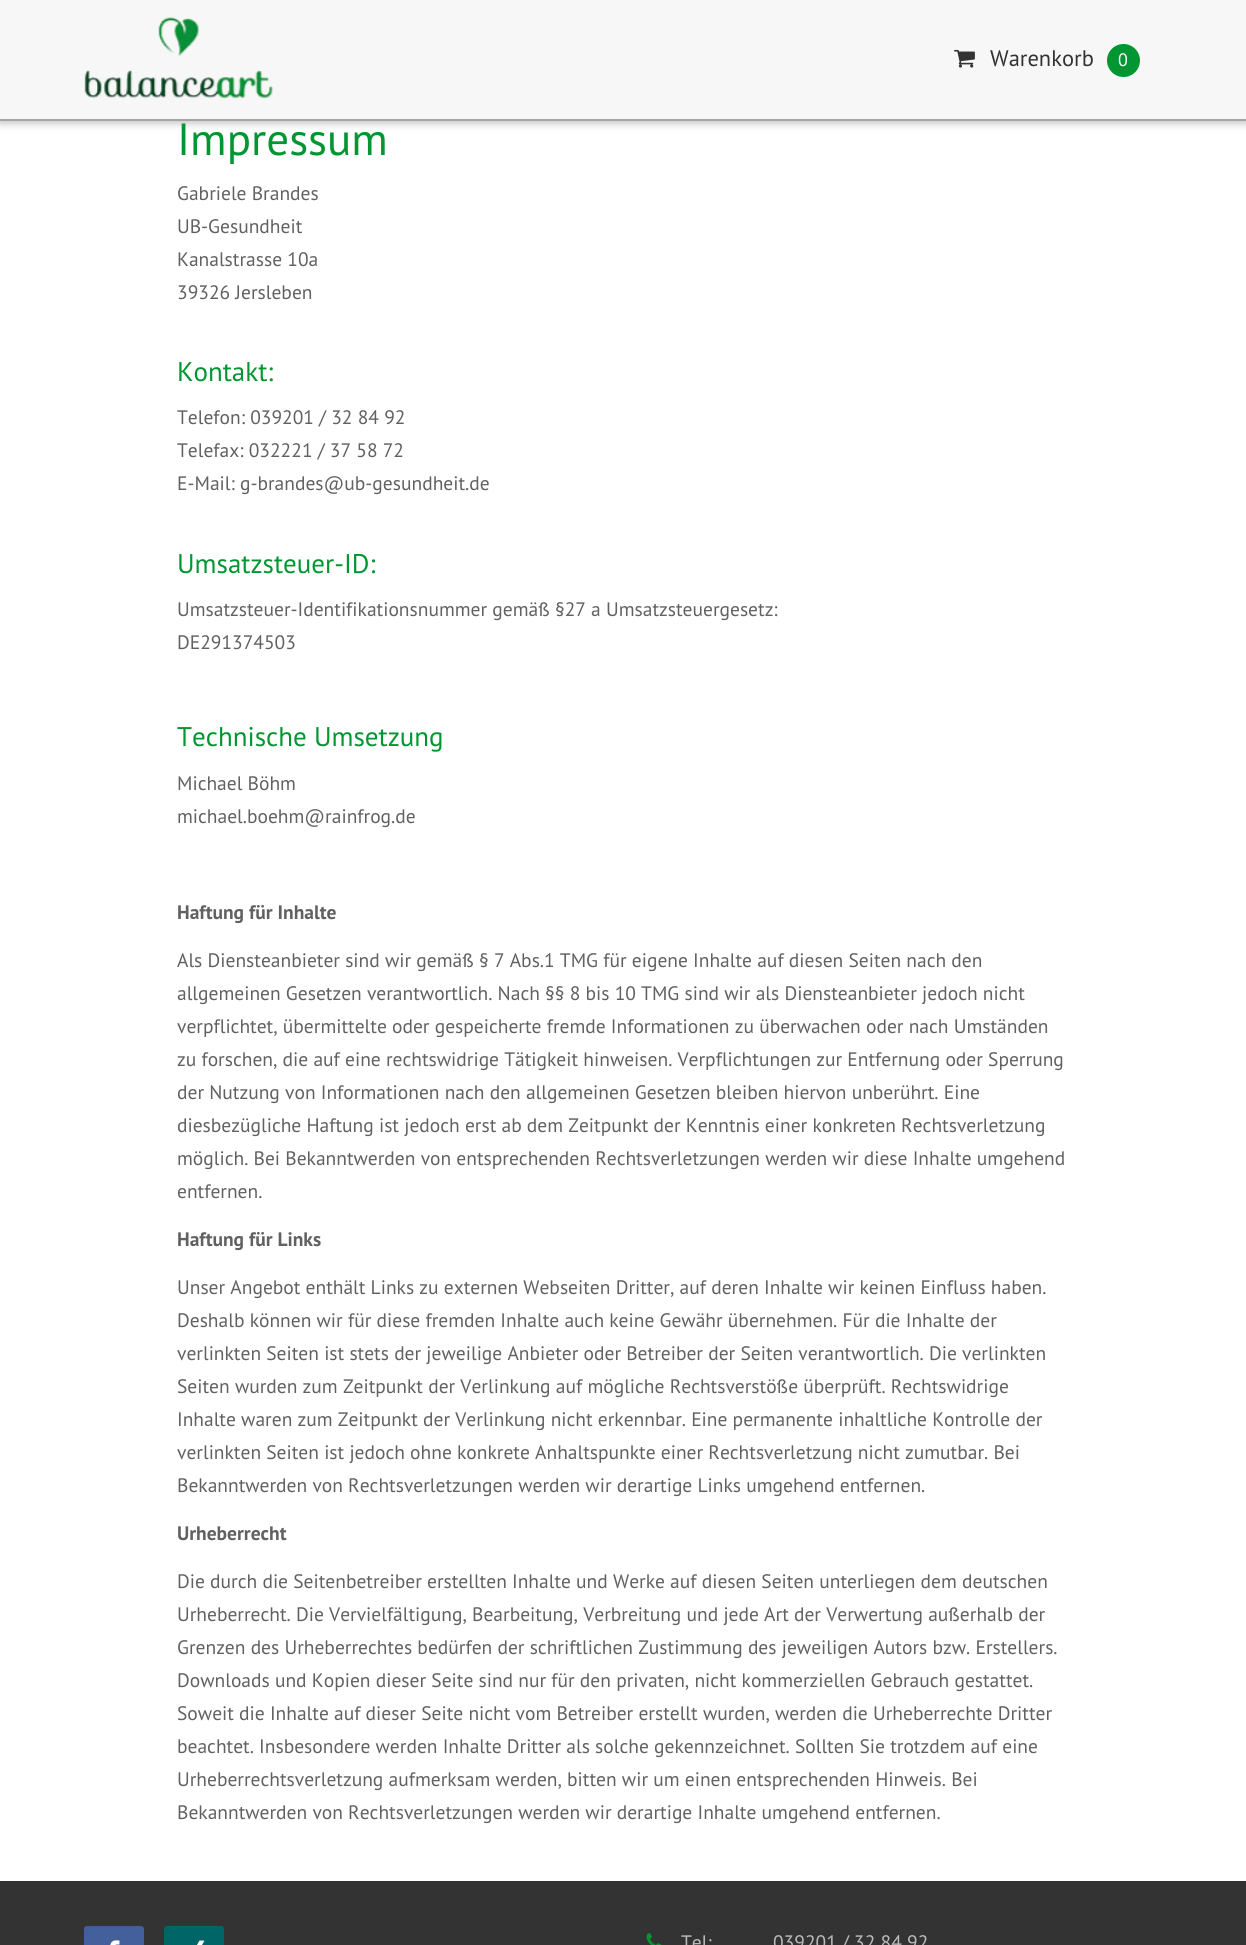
#include <cairo.h>
#include <math.h>
#include <stddef.h>


static void rgb(cairo_t *cr, int r, int g, int b)
{
	cairo_set_source_rgb(cr, r / 255.0, g / 255.0, b / 255.0);
}

static void face(cairo_t *cr, const char *family, double size, int italic, int bold)
{
	cairo_select_font_face(cr, family, italic ? CAIRO_FONT_SLANT_ITALIC : CAIRO_FONT_SLANT_NORMAL,
		bold ? CAIRO_FONT_WEIGHT_BOLD : CAIRO_FONT_WEIGHT_NORMAL);
	cairo_set_font_size(cr, size);
}

static void label(cairo_t *cr, double x, double y, const char *s)
{
	cairo_move_to(cr, x, y);
	cairo_show_text(cr, s);
}

static void rect(cairo_t *cr, double x, double y, double w, double h)
{
	cairo_rectangle(cr, x, y, w, h);
	cairo_fill(cr);
}

static void rrect(cairo_t *cr, double x, double y, double w, double h, double r)
{
	cairo_new_sub_path(cr);
	cairo_arc(cr, x + w - r, y + h - r, r, 0, M_PI / 2);
	cairo_arc(cr, x + r, y + h - r, r, M_PI / 2, M_PI);
	cairo_arc(cr, x + r, y + r, r, M_PI, 1.5 * M_PI);
	cairo_arc(cr, x + w - r, y + r, r, 1.5 * M_PI, 2 * M_PI);
	cairo_close_path(cr);
}

static void soft_shadow(cairo_t *cr, double x, double y, double w, double h, double r, double blur, double alpha)
{
	cairo_push_group_with_content(cr, CAIRO_CONTENT_ALPHA);
	cairo_set_operator(cr, CAIRO_OPERATOR_SOURCE);
	for (int i = 15; i >= -15 && fmin(w, h) + blur * i / 3 > 0; i -= 2) {
		double e = blur * i / 6;
		cairo_set_source_rgba(cr, 0, 0, 0, alpha * erfc((i - 1) / 8.5) / 2);
		rrect(cr, x - e, y - e, w + 2 * e, h + 2 * e, fmax(0, fmin(r + e + blur * .6, fmin(w, h) / 2 + e)));
		cairo_fill(cr);
	}
	cairo_pattern_t *soft = cairo_pop_group(cr);
	cairo_mask(cr, soft);
	cairo_pattern_destroy(soft);
}

static void image(cairo_t *cr, const char *path, double x, double y, double w, double h)
{
	cairo_surface_t *image = cairo_image_surface_create_from_png(path);
	cairo_save(cr);
	cairo_set_source_surface(cr, image, x, y);
	cairo_rectangle(cr, x, y, w, h);
	cairo_fill(cr);
	cairo_restore(cr);
	cairo_surface_destroy(image);
}

static void draw(cairo_t *cr) {
	rgb(cr, 255, 255, 255);
	cairo_paint(cr);
	rgb(cr, 189, 189, 189);
	soft_shadow(cr, 0, 3, 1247, 120, 0, 4, 1);
	rgb(cr, 247, 247, 247);
	rect(cr, 0, 0, 1246, 119);
	rgb(cr, 165, 165, 165);
	rect(cr, 0, 119, 1246, 2);
	image(cr, "image0.png", 84, 17, 189, 82);
	image(cr, "image1.png", 954, 49, 21, 19);
	face(cr, "PT Sans", 22.5, 0, 0);
	rgb(cr, 51, 51, 51);
	label(cr, 990, 66, "Warenkorb");
	rgb(cr, 1, 150, 50);
	cairo_new_path(cr);
	cairo_arc(cr, 1123.5, 60.5, 16.5, 0, 2 * M_PI);
	cairo_fill(cr);
	face(cr, "PT Sans", 18, 0, 0);
	rgb(cr, 255, 255, 255);
	label(cr, 1118, 66, "0");
	face(cr, "PT Sans", 45, 0, 0);
	rgb(cr, 1, 150, 50);
	label(cr, 177, 155, "Impressum");
	face(cr, "PT Sans", 19.5, 0, 0);
	rgb(cr, 97, 97, 97);
	label(cr, 177, 200, "Gabriele Brandes");
	label(cr, 177, 233, "UB-Gesundheit");
	label(cr, 177, 266, "Kanalstrasse 10a");
	label(cr, 177, 299, "39326 Jersleben");
	face(cr, "PT Sans", 27, 0, 0);
	rgb(cr, 1, 150, 50);
	label(cr, 177, 381, "Kontakt:");
	face(cr, "PT Sans", 19.5, 0, 0);
	rgb(cr, 97, 97, 97);
	label(cr, 177, 424, "Telefon: 039201 / 32 84 92");
	label(cr, 177, 457, "Telefax: 032221 / 37 58 72");
	label(cr, 177, 490, "E-Mail: g-brandes@ub-gesundheit.de");
	face(cr, "PT Sans", 27, 0, 0);
	rgb(cr, 1, 150, 50);
	label(cr, 177, 573, "Umsatzsteuer-ID:");
	face(cr, "PT Sans", 19.5, 0, 0);
	rgb(cr, 97, 97, 97);
	label(cr, 177, 616, "Umsatzsteuer-Identifikationsnummer gemäß §27 a Umsatzsteuergesetz:");
	label(cr, 177, 649, "DE291374503");
	face(cr, "PT Sans", 27, 0, 0);
	rgb(cr, 1, 150, 50);
	label(cr, 177, 746, "Technische Umsetzung");
	face(cr, "PT Sans", 19.5, 0, 0);
	rgb(cr, 97, 97, 97);
	label(cr, 177, 790, "Michael Böhm");
	label(cr, 177, 823, "michael.boehm@rainfrog.de");
	face(cr, "PT Sans", 19.5, 0, 1);
	label(cr, 177, 919, "Haftung für Inhalte");
	face(cr, "PT Sans", 19.5, 0, 0);
	label(cr, 177, 967, "Als Diensteanbieter sind wir gemäß § 7 Abs.1 TMG für eigene Inhalte auf diesen Seiten nach den");
	label(cr, 177, 1000, "allgemeinen Gesetzen verantwortlich. Nach §§ 8 bis 10 TMG sind wir als Diensteanbieter jedoch nicht");
	label(cr, 177, 1033, "verpflichtet, übermittelte oder gespeicherte fremde Informationen zu überwachen oder nach Umständen");
	label(cr, 177, 1066, "zu forschen, die auf eine rechtswidrige Tätigkeit hinweisen. Verpflichtungen zur Entfernung oder Sperrung");
	label(cr, 177, 1099, "der Nutzung von Informationen nach den allgemeinen Gesetzen bleiben hiervon unberührt. Eine");
	label(cr, 177, 1132, "diesbezügliche Haftung ist jedoch erst ab dem Zeitpunkt der Kenntnis einer konkreten Rechtsverletzung");
	label(cr, 177, 1165, "möglich. Bei Bekanntwerden von entsprechenden Rechtsverletzungen werden wir diese Inhalte umgehend");
	label(cr, 177, 1198, "entfernen.");
	face(cr, "PT Sans", 19.5, 0, 1);
	label(cr, 177, 1246, "Haftung für Links");
	face(cr, "PT Sans", 19.5, 0, 0);
	label(cr, 177, 1294, "Unser Angebot enthält Links zu externen Webseiten Dritter, auf deren Inhalte wir keinen Einfluss haben.");
	label(cr, 177, 1327, "Deshalb können wir für diese fremden Inhalte auch keine Gewähr übernehmen. Für die Inhalte der");
	label(cr, 177, 1360, "verlinkten Seiten ist stets der jeweilige Anbieter oder Betreiber der Seiten verantwortlich. Die verlinkten");
	label(cr, 177, 1393, "Seiten wurden zum Zeitpunkt der Verlinkung auf mögliche Rechtsverstöße überprüft. Rechtswidrige");
	label(cr, 177, 1426, "Inhalte waren zum Zeitpunkt der Verlinkung nicht erkennbar. Eine permanente inhaltliche Kontrolle der");
	label(cr, 177, 1459, "verlinkten Seiten ist jedoch ohne konkrete Anhaltspunkte einer Rechtsverletzung nicht zumutbar. Bei");
	label(cr, 177, 1492, "Bekanntwerden von Rechtsverletzungen werden wir derartige Links umgehend entfernen.");
	face(cr, "PT Sans", 19.5, 0, 1);
	label(cr, 177, 1540, "Urheberrecht");
	face(cr, "PT Sans", 19.5, 0, 0);
	label(cr, 177, 1588, "Die durch die Seitenbetreiber erstellten Inhalte und Werke auf diesen Seiten unterliegen dem deutschen");
	label(cr, 177, 1621, "Urheberrecht. Die Vervielfältigung, Bearbeitung, Verbreitung und jede Art der Verwertung außerhalb der");
	label(cr, 177, 1654, "Grenzen des Urheberrechtes bedürfen der schriftlichen Zustimmung des jeweiligen Autors bzw. Erstellers.");
	label(cr, 177, 1687, "Downloads und Kopien dieser Seite sind nur für den privaten, nicht kommerziellen Gebrauch gestattet.");
	label(cr, 177, 1720, "Soweit die Inhalte auf dieser Seite nicht vom Betreiber erstellt wurden, werden die Urheberrechte Dritter");
	label(cr, 177, 1753, "beachtet. Insbesondere werden Inhalte Dritter als solche gekennzeichnet. Sollten Sie trotzdem auf eine");
	label(cr, 177, 1786, "Urheberrechtsverletzung aufmerksam werden, bitten wir um einen entsprechenden Hinweis. Bei");
	label(cr, 177, 1819, "Bekanntwerden von Rechtsverletzungen werden wir derartige Inhalte umgehend entfernen.");
	rgb(cr, 51, 51, 51);
	rect(cr, 0, 1881, 1246, 64);
	rgb(cr, 67, 96, 156);
	rrect(cr, 84, 1926, 60, 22, 3);
	cairo_fill(cr);
	image(cr, "image2.png", 110, 1940, 10, 5);
	rgb(cr, 0, 101, 103);
	rrect(cr, 164, 1926, 60, 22, 3);
	cairo_fill(cr);
	image(cr, "image3.png", 197, 1940, 8, 5);
	image(cr, "image4.png", 646, 1933, 16, 12);
	rgb(cr, 187, 187, 187);
	label(cr, 681, 1949, "Tel:");
	label(cr, 773, 1949, "039201 / 32 84 92");
}

int main(void) {
	cairo_surface_t *surface = cairo_image_surface_create(CAIRO_FORMAT_RGB24, 1246, 1945);
	cairo_t *cr = cairo_create(surface);
	cairo_font_options_t *options = cairo_font_options_create();
	cairo_font_options_set_hint_metrics(options, CAIRO_HINT_METRICS_OFF);
	cairo_font_options_set_hint_style(options, CAIRO_HINT_STYLE_NONE);
	cairo_set_font_options(cr, options);
	cairo_set_miter_limit(cr, 4);
	draw(cr);
	cairo_surface_write_to_png(surface, "render.png");
	cairo_font_options_destroy(options);
	cairo_destroy(cr);
	cairo_surface_destroy(surface);
	return 0;
}
